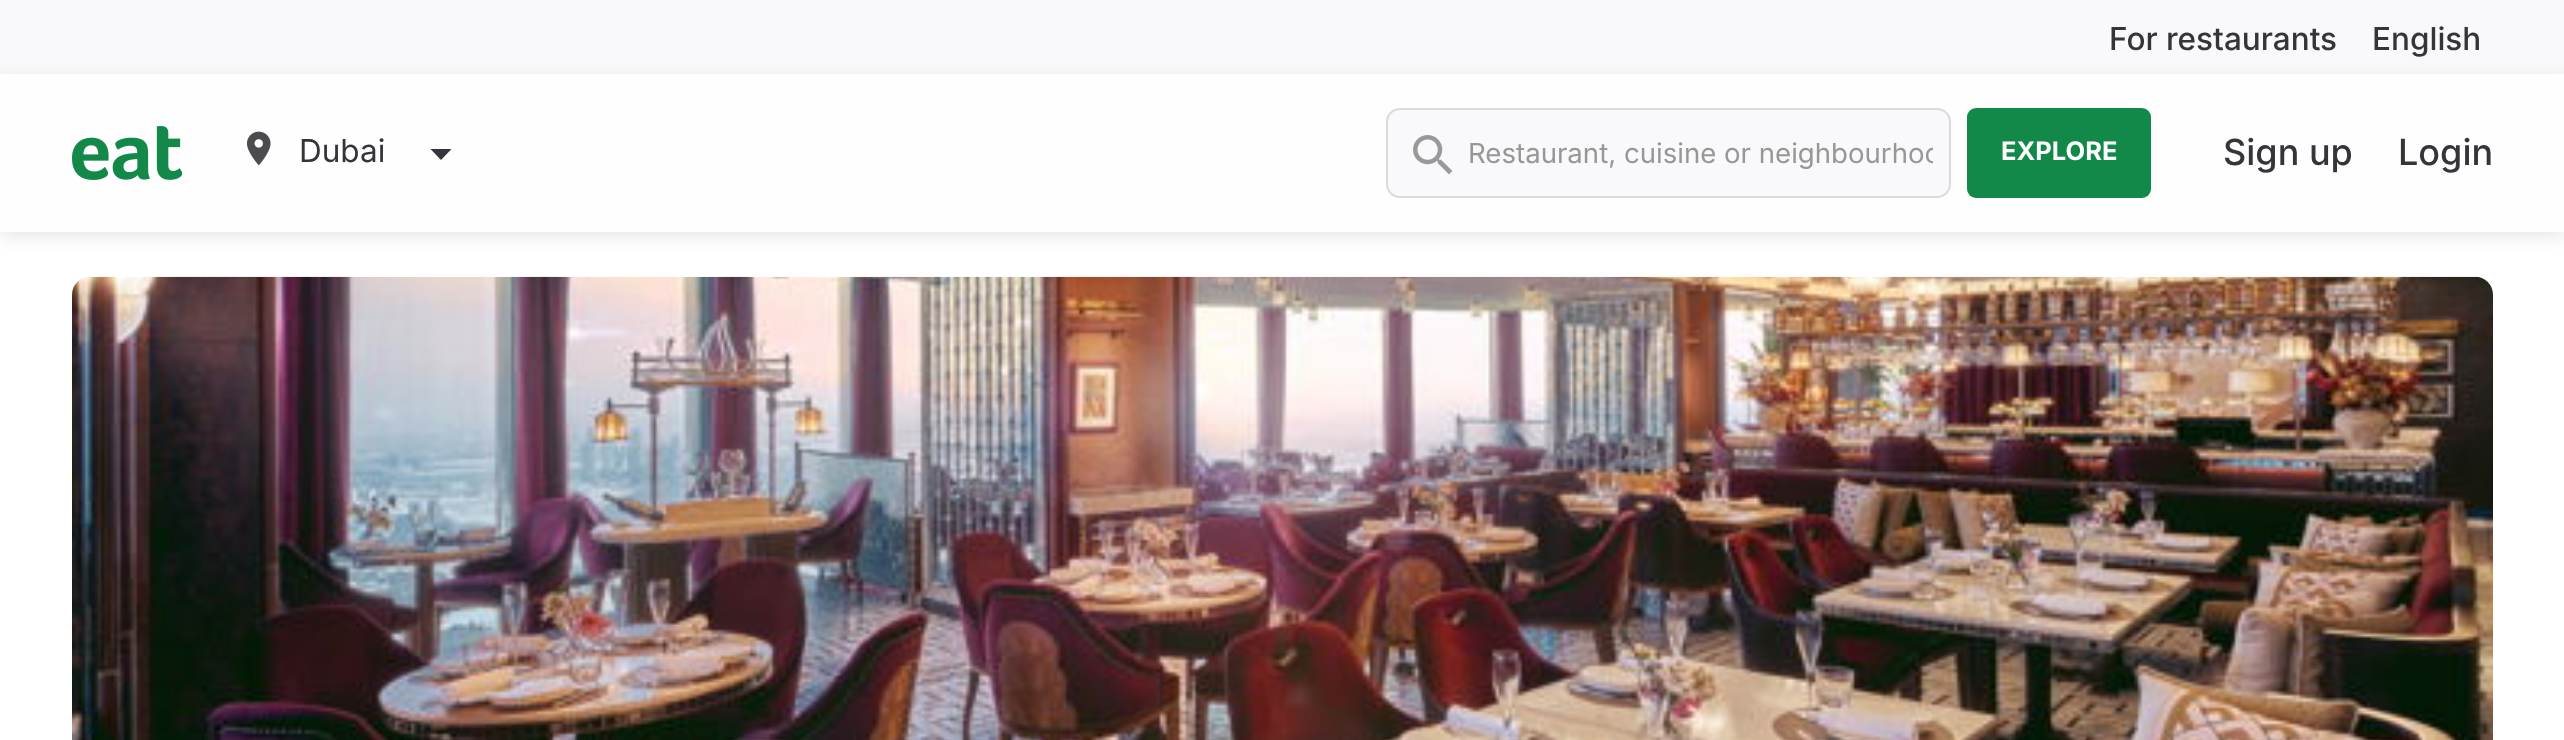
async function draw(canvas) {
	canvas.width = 2564;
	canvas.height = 740;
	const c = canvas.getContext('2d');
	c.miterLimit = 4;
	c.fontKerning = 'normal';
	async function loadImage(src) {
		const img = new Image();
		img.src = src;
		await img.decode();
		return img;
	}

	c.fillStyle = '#fff';
	c.fillRect(0, 0, 2564, 740);
	c.fillStyle = '#f9f9fb';
	c.fillRect(0, 0, 2564, 74);
	c.font = '500 31.5px Inter';
	c.fillStyle = '#34353a';
	c.fillText('For restaurants', 2109, 50);
	c.fillStyle = '#50505026';
	c.filter = 'blur(9px)';
	c.beginPath();
	c.rect(0, 79, 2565, 157);
	c.fill();
	c.filter = 'none';
	c.fillStyle = '#34353a';
	c.fillText('English', 2372, 50);
	c.fillStyle = '#fefefe';
	c.fillRect(0, 74, 2564, 158);
	c.drawImage(await loadImage('img1.png'), 72, 126, 110, 54);
	c.drawImage(await loadImage('img2.png'), 246, 131, 25, 35);
	c.font = '31.5px Inter';
	c.fillStyle = '#34353a';
	c.fillText('Dubai', 299, 162);
	c.save();
	c.beginPath();
	c.rect(430, 149, 22, 11);
	c.clip();
	c.beginPath();
	c.moveTo(430, 148.5);
	c.lineTo(441, 160);
	c.lineTo(452, 148.5);
	c.closePath();
	c.fill();
	c.restore();
	c.fillStyle = '#f9f9fb';
	c.beginPath();
	c.roundRect(1387, 109, 563, 88, 13);
	c.fill();
	c.strokeStyle = '#dadada';
	c.lineWidth = 2;
	c.stroke();
	c.drawImage(await loadImage('img3.png'), 1413, 135, 40, 40);
	c.save();
	c.beginPath();
	c.rect(1467, 137, 466, 34);
	c.clip();
	c.font = '27.6px Inter';
	c.fillStyle = '#979797';
	c.fillText('Restaurant, cuisine or neighbourhoo', 1468, 163);
	c.restore();
	c.fillStyle = '#128849';
	c.beginPath();
	c.roundRect(1967, 108, 184, 90, 9);
	c.fill();
	c.font = 'bold 25.5px Inter';
	c.fillStyle = '#fefefe';
	c.fillText('EXPLORE', 2001, 160);
	c.font = '500 36px Inter';
	c.fillStyle = '#34353a';
	c.fillText('Sign up', 2223, 165);
	c.fillText('Login', 2398, 165);
	c.drawImage(await loadImage('img4.png'), 72, 276, 2421, 464);
}

draw(document.querySelector('canvas'));
